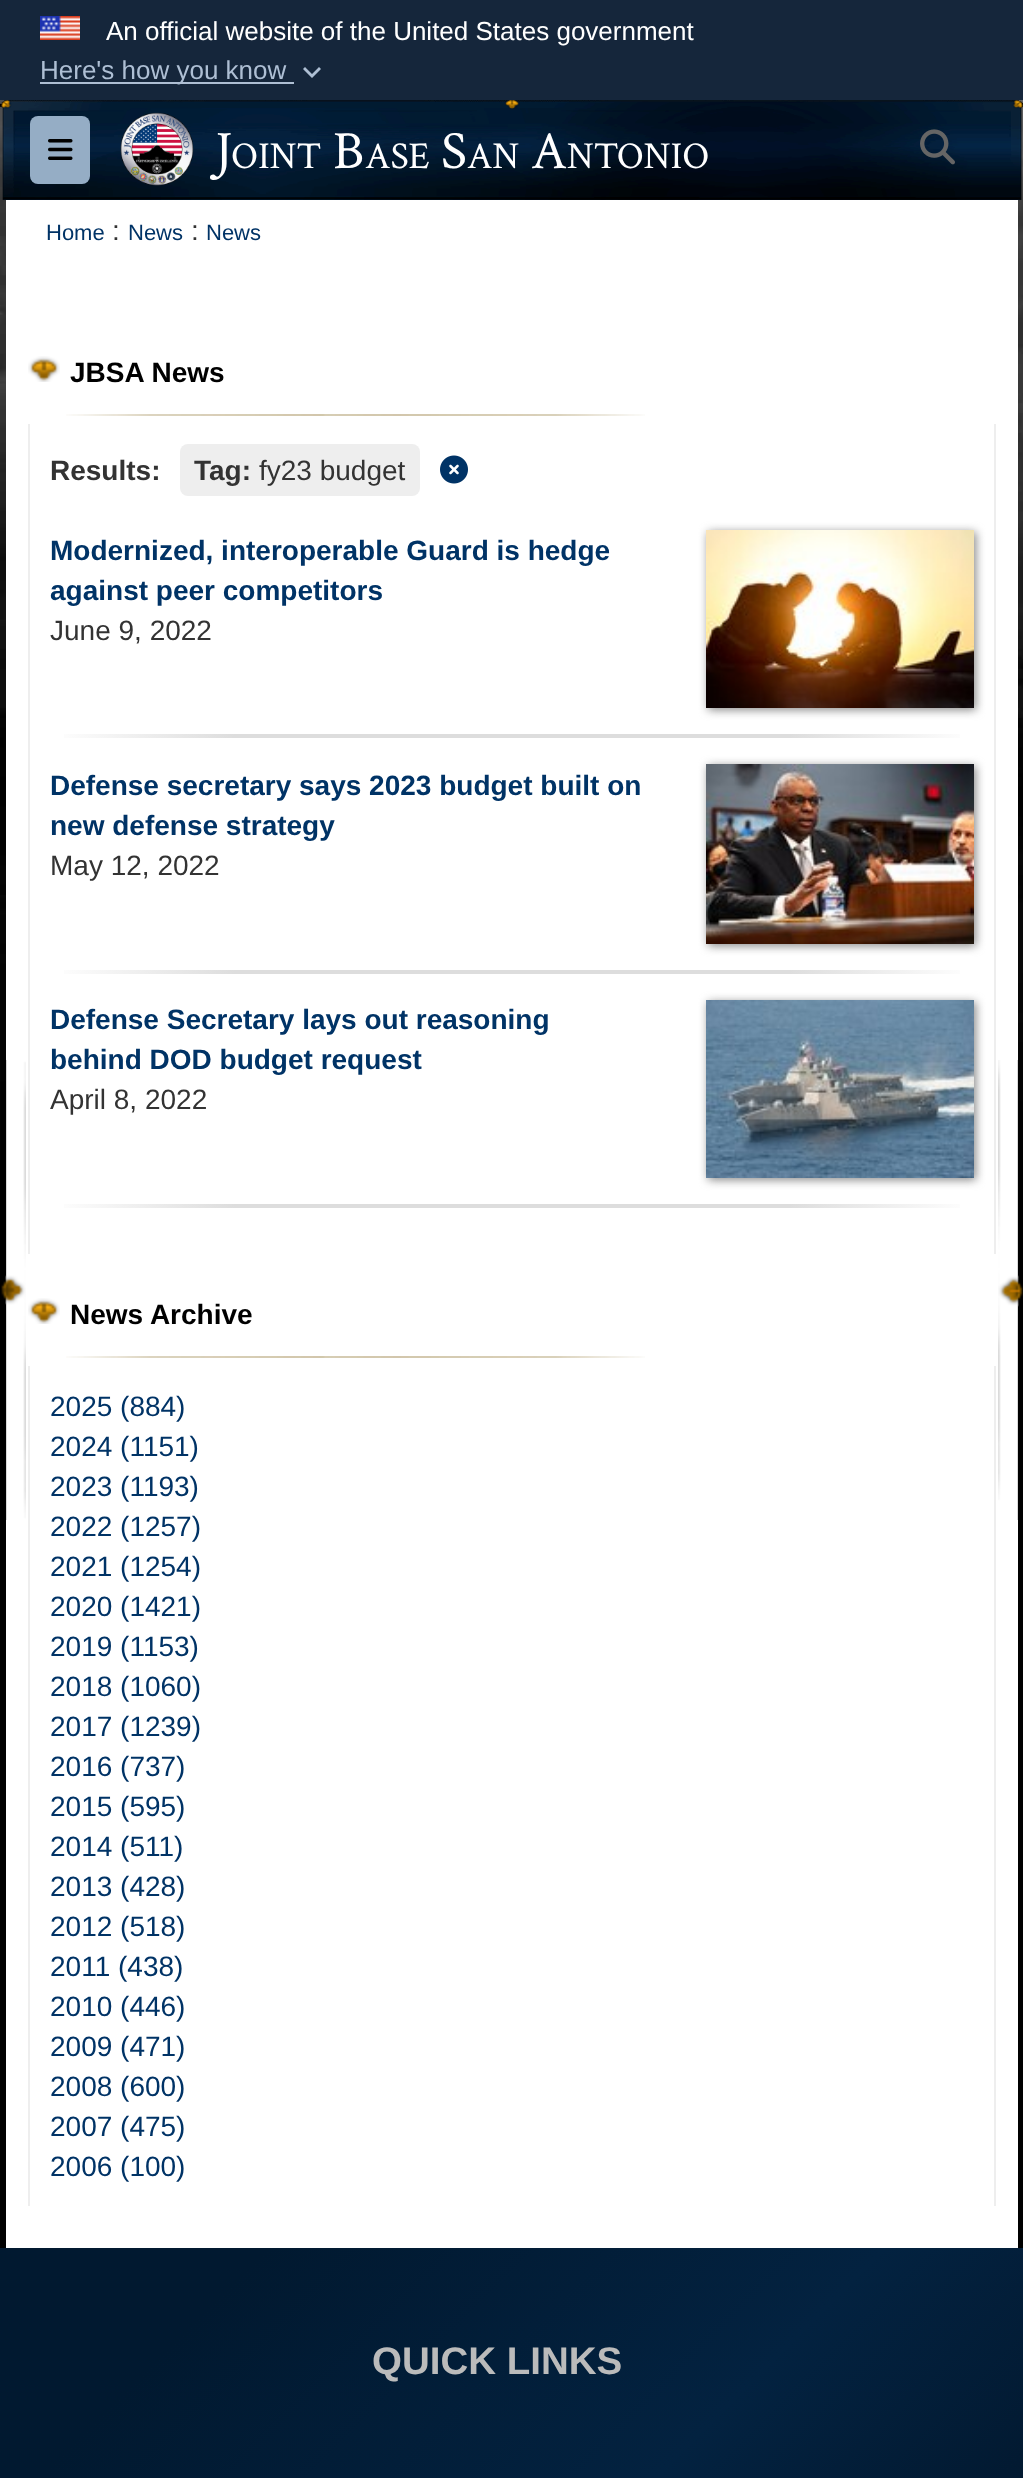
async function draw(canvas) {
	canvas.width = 1023;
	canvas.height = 2478;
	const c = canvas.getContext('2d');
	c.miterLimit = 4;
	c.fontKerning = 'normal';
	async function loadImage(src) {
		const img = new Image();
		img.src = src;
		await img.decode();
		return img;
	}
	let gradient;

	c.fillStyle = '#fff';
	c.fillRect(0, 0, 1023, 2478);
	c.drawImage(await loadImage('img1.png'), 0, 100, 1023, 2148);
	c.fillStyle = '#15263b';
	c.fillRect(0, 0, 1023, 100);
	c.drawImage(await loadImage('img2.png'), 40, 16, 40, 24);
	c.font = '26px Liberation Sans';
	c.fillStyle = '#fff';
	c.fillText('An official website of the United States government', 106, 40);
	c.fillStyle = '#aebfd4';
	c.fillRect(40, 82, 254, 2);
	c.fillText('Here\'s how you know', 40, 79);
	c.beginPath();
	c.moveTo(319, 67);
	c.lineTo(312, 74);
	c.lineTo(305, 67);
	c.lineTo(303, 69);
	c.lineTo(312, 78);
	c.lineTo(321, 69);
	c.closePath();
	c.fill();
	c.drawImage(await loadImage('img3.png'), 0, 100, 1023, 100);
	c.fillStyle = '#95adc5';
	c.beginPath();
	c.roundRect(30, 116, 60, 68, 8);
	c.fill();
	c.drawImage(await loadImage('img4.png'), 48, 139, 25, 21);
	c.drawImage(await loadImage('img5.png'), 120, 112, 74, 74);
	c.font = '54px Crimson Text';
	c.fillStyle = '#fff';
	c.fillText('J', 215, 168);
	c.font = '38px Crimson Text';
	c.fillText('OINT', 231, 168);
	c.font = '54px Crimson Text';
	c.fillText('B', 333, 168);
	c.font = '38px Crimson Text';
	c.fillText('ASE', 365, 168);
	c.font = '54px Crimson Text';
	c.fillText('S', 441, 168);
	c.font = '38px Crimson Text';
	c.fillText('AN', 467, 168);
	c.font = '54px Crimson Text';
	c.fillText('A', 531, 168);
	c.font = '38px Crimson Text';
	c.fillText('NTONIO', 567, 168);
	c.drawImage(await loadImage('img6.png'), 920, 129, 35, 36);
	c.fillRect(6, 200, 1012, 2048);
	c.font = '22px Liberation Sans';
	c.fillStyle = '#036';
	c.fillText('Home', 46, 240);
	c.font = '28px Liberation Sans';
	c.fillStyle = '#333';
	c.fillText(':', 112, 240);
	c.font = '22px Liberation Sans';
	c.fillStyle = '#036';
	c.fillText('News', 128, 240);
	c.font = '28px Liberation Sans';
	c.fillStyle = '#333';
	c.fillText(':', 191, 240);
	c.font = '22px Liberation Sans';
	c.fillStyle = '#036';
	c.fillText('News', 206, 240);
	c.drawImage(await loadImage('img7.png'), 1, 1060, 1022, 460);
	c.drawImage(await loadImage('img8.png'), 66, 414, 579, 2);
	c.drawImage(await loadImage('img9.png'), 28, 356, 32, 26);
	c.font = 'bold 28px Liberation Sans';
	c.fillStyle = '#000';
	c.fillText('JBSA News', 70, 382);
	c.fillStyle = '#eee';
	c.fillRect(994, 424, 2, 830);
	c.fillRect(28, 424, 2, 830);
	c.fillStyle = '#333';
	c.fillText('Results:', 50, 480);
	c.fillStyle = '#eee';
	c.beginPath();
	c.roundRect(180, 444, 240, 52, 8);
	c.fill();
	c.fillStyle = '#333';
	c.fillText('Tag:', 194, 480);
	c.font = '28px Liberation Sans';
	c.fillText('fy23 budget', 259, 480);
	c.drawImage(await loadImage('img10.png'), 440, 455, 28, 29);
	c.font = 'bold 28px Liberation Sans';
	c.fillStyle = '#036';
	c.fillText('Modernized, interoperable Guard is hedge', 50, 560);
	c.fillText('against peer competitors', 50, 600);
	c.font = '28px Liberation Sans';
	c.fillStyle = '#333';
	c.fillText('June 9, 2022', 50, 640);
	c.fillStyle = '#888';
	c.filter = 'blur(5px)';
	c.beginPath();
	c.rect(708, 532, 268, 178);
	c.fill();
	c.filter = 'none';
	c.drawImage(await loadImage('img11.png'), 706, 530, 268, 178);
	gradient = c.createLinearGradient(50, 736, 974, 736);
	gradient.addColorStop(0, '#fff');
	gradient.addColorStop(0.2, '#ddd');
	gradient.addColorStop(0.8, '#ddd');
	gradient.addColorStop(1, '#fff');
	c.fillStyle = gradient;
	c.fillRect(64, 734, 896, 4);
	c.font = 'bold 28px Liberation Sans';
	c.fillStyle = '#036';
	c.fillText('Defense secretary says 2023 budget built on', 50, 795);
	c.fillText('new defense strategy', 50, 835);
	c.font = '28px Liberation Sans';
	c.fillStyle = '#333';
	c.fillText('May 12, 2022', 50, 875);
	c.fillStyle = '#888';
	c.filter = 'blur(5px)';
	c.beginPath();
	c.rect(708, 766, 268, 180);
	c.fill();
	c.filter = 'none';
	c.drawImage(await loadImage('img12.png'), 706, 764, 268, 180);
	gradient = c.createLinearGradient(50, 972, 974, 972);
	gradient.addColorStop(0, '#fff');
	gradient.addColorStop(0.2, '#ddd');
	gradient.addColorStop(0.8, '#ddd');
	gradient.addColorStop(1, '#fff');
	c.fillStyle = gradient;
	c.fillRect(64, 970, 896, 4);
	c.font = 'bold 28px Liberation Sans';
	c.fillStyle = '#036';
	c.fillText('Defense Secretary lays out reasoning', 50, 1029);
	c.fillText('behind DOD budget request', 50, 1069);
	c.font = '28px Liberation Sans';
	c.fillStyle = '#333';
	c.fillText('April 8, 2022', 50, 1109);
	c.fillStyle = '#888';
	c.filter = 'blur(5px)';
	c.beginPath();
	c.rect(708, 1002, 268, 178);
	c.fill();
	c.filter = 'none';
	c.drawImage(await loadImage('img13.png'), 706, 1000, 268, 178);
	gradient = c.createLinearGradient(50, 1206, 974, 1206);
	gradient.addColorStop(0, '#fff');
	gradient.addColorStop(0.2, '#ddd');
	gradient.addColorStop(0.8, '#ddd');
	gradient.addColorStop(1, '#fff');
	c.fillStyle = gradient;
	c.fillRect(64, 1204, 896, 4);
	c.drawImage(await loadImage('img8.png'), 66, 1356, 579, 2);
	c.drawImage(await loadImage('img9.png'), 28, 1298, 32, 26);
	c.font = 'bold 28px Liberation Sans';
	c.fillStyle = '#000';
	c.fillText('News Archive', 70, 1324);
	c.fillStyle = '#eee';
	c.fillRect(994, 1366, 2, 840);
	c.fillRect(28, 1366, 2, 840);
	c.font = '28px Liberation Sans';
	c.fillStyle = '#036';
	for (const [text, x, y] of [
		['2025 (884)', 50, 1416],
		['2024 (1151)', 50, 1456],
		['2023 (1193)', 50, 1496],
		['2022 (1257)', 50, 1536],
		['2021 (1254)', 50, 1576],
		['2020 (1421)', 50, 1616],
		['2019 (1153)', 50, 1656],
		['2018 (1060)', 50, 1696],
		['2017 (1239)', 50, 1736],
		['2016 (737)', 50, 1776],
		['2015 (595)', 50, 1816],
		['2014 (511)', 50, 1856],
		['2013 (428)', 50, 1896],
		['2012 (518)', 50, 1936],
		['2011 (438)', 50, 1976],
		['2010 (446)', 50, 2016],
		['2009 (471)', 50, 2056],
		['2008 (600)', 50, 2096],
		['2007 (475)', 50, 2136],
		['2006 (100)', 50, 2176],
	]) {
		c.fillText(text, x, y);
	}
	gradient = c.createLinearGradient(-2, 2250, 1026, 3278);
	gradient.addColorStop(0, '#011930');
	gradient.addColorStop(0.13, '#011930');
	gradient.addColorStop(0.43, '#032240');
	gradient.addColorStop(0.79, '#011122');
	gradient.addColorStop(1, '#000b16');
	c.fillStyle = gradient;
	c.fillRect(0, 2248, 1023, 230);
	c.font = 'bold 38.5px Liberation Sans';
	c.fillStyle = '#bbb';
	c.fillText('QUICK LINKS', 372, 2374);
}

draw(document.querySelector('canvas'));
